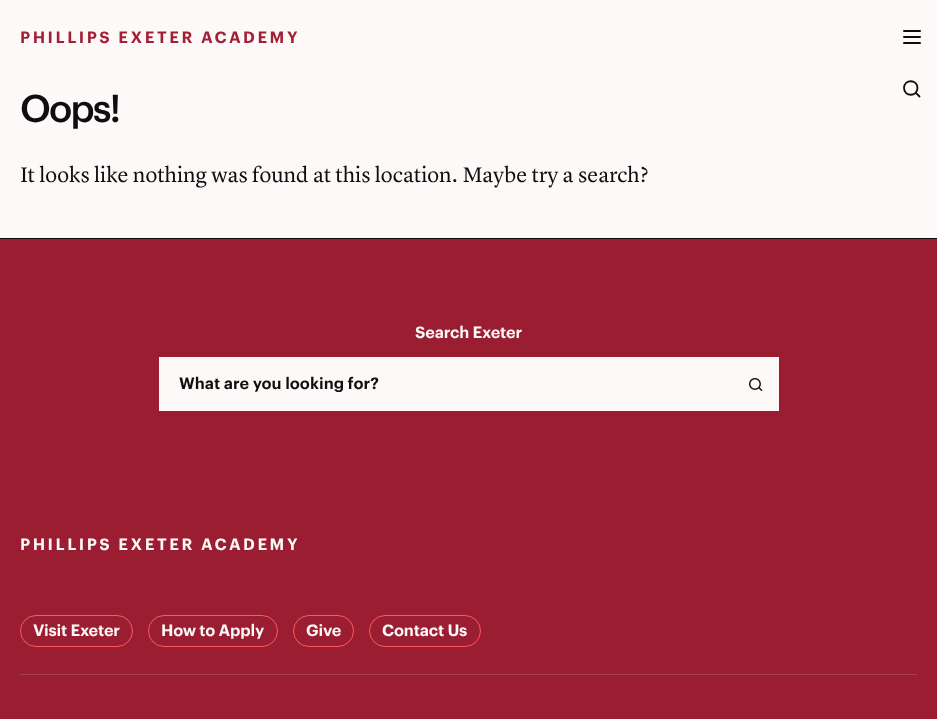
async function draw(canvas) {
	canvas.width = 937;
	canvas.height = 719;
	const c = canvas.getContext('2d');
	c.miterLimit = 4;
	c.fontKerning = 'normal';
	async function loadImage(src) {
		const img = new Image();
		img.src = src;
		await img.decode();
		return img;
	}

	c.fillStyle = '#fcf9f8';
	c.fillRect(0, 0, 937, 719);
	c.letterSpacing = '2.5px';
	c.font = '600 16px Graphik';
	c.fillStyle = '#a31f34';
	c.fillText('PHILLIPS EXETER ACADEMY', 20, 43);
	c.fillStyle = '#0f0d0d';
	c.beginPath();
	c.roundRect(903, 36, 18, 2, 1);
	c.fill();
	c.beginPath();
	c.roundRect(903, 30, 18, 2, 1);
	c.fill();
	c.beginPath();
	c.roundRect(903, 42, 18, 2, 1);
	c.fill();
	c.beginPath();
	c.moveTo(915.5, 92.5);
	c.lineTo(920, 97);
	c.moveTo(917.5, 88);
	c.bezierCurveTo(917.5, 97, 904, 97, 904, 88);
	c.bezierCurveTo(904, 79, 917.5, 79, 917.5, 88);
	c.closePath();
	c.strokeStyle = '#0f0d0d';
	c.lineWidth = 1.8;
	c.stroke();
	c.fillRect(0, 238, 937, 1);
	c.letterSpacing = '-2px';
	c.font = '500 38px Graphik';
	c.fillText('Oops!', 20, 122);
	c.letterSpacing = '0px';
	c.font = '22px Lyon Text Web';
	c.fillText('It looks like nothing was found at this location. Maybe try a search?', 20, 182);
	c.fillStyle = '#9b1d31';
	c.fillRect(0, 239, 937, 480);
	c.letterSpacing = '-0.2px';
	c.font = '600 16px Graphik';
	c.fillStyle = '#fcf9f8';
	c.fillText('Search Exeter', 415, 338);
	c.fillRect(159, 357, 620, 54);
	c.letterSpacing = '0px';
	c.fillStyle = '#0f0d0d';
	c.fillText('What are you looking for?', 179, 389);
	c.drawImage(await loadImage('img1.png'), 749, 378, 14, 13);
	c.letterSpacing = '2.5px';
	c.fillStyle = '#fcf9f8';
	c.fillText('PHILLIPS EXETER ACADEMY', 20, 550);
	c.beginPath();
	c.roundRect(20.5, 615.5, 112, 31, 15.5);
	c.strokeStyle = '#ff585d';
	c.lineWidth = 1;
	c.stroke();
	c.letterSpacing = '-0.2px';
	c.fillText('Visit Exeter', 33, 636);
	c.beginPath();
	c.roundRect(148.5, 615.5, 129, 31, 15.5);
	c.stroke();
	c.fillText('How to Apply', 161, 636);
	c.beginPath();
	c.roundRect(293.5, 615.5, 60, 31, 15.5);
	c.stroke();
	c.fillText('Give', 306, 636);
	c.beginPath();
	c.roundRect(369.5, 615.5, 111, 31, 15.5);
	c.stroke();
	c.fillText('Contact Us', 382, 636);
	c.fillStyle = '#aa3e4f';
	c.fillRect(20, 674, 897, 1);
}

draw(document.querySelector('canvas'));
